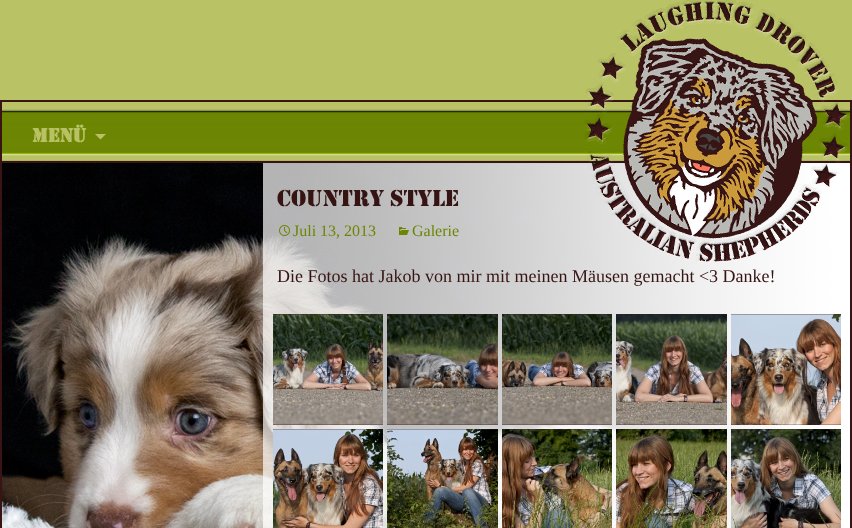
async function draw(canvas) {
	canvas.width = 852;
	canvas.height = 528;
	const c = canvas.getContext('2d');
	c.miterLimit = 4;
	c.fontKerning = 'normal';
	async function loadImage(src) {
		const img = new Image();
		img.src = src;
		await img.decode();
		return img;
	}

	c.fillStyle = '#b9c265';
	c.fillRect(0, 0, 852, 528);
	c.strokeStyle = '#381414';
	c.lineWidth = 2;
	c.strokeRect(1, 101, 850, 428);
	c.drawImage(await loadImage('img1.png'), 2, 109, 848, 52);
	c.font = 'bold 20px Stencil';
	c.fillStyle = '#b8c164';
	c.fillText('MENÜ', 32, 142);
	c.beginPath();
	c.moveTo(95, 134);
	c.lineTo(100.5, 139.5);
	c.lineTo(106, 134);
	c.closePath();
	c.fill();
	c.fillStyle = '#361413';
	c.fillRect(2, 161, 848, 2);
	c.drawImage(await loadImage('img3.png'), 2, 163, 848, 365);
	c.drawImage(await loadImage('img2.png'), 584, 0, 266, 262);
	c.font = '24px Stencil';
	c.fillStyle = '#371414';
	c.fillText('COUNTRY STYLE', 277, 206);
	c.drawImage(await loadImage('img4.png'), 279, 225, 11, 11);
	c.font = '16px Liberation Serif';
	c.fillStyle = '#6c8503';
	c.fillText('Juli 13, 2013', 293, 236);
	c.drawImage(await loadImage('img5.png'), 399, 227, 10, 8);
	c.fillText('Galerie', 412, 236);
	c.font = '18px Liberation Serif';
	c.fillStyle = '#371414';
	c.fillText('Die Fotos hat Jakob von mir mit meinen Mäusen gemacht <3 Danke!', 277, 282);
	c.drawImage(await loadImage('img6.png'), 273, 314, 110, 111);
	c.drawImage(await loadImage('img7.png'), 387, 314, 111, 111);
	c.drawImage(await loadImage('img8.png'), 502, 314, 110, 111);
	c.drawImage(await loadImage('img9.png'), 616, 314, 111, 111);
	c.drawImage(await loadImage('img10.png'), 731, 314, 110, 111);
	c.drawImage(await loadImage('img11.png'), 273, 429, 110, 99);
	c.drawImage(await loadImage('img12.png'), 387, 429, 111, 99);
	c.drawImage(await loadImage('img13.png'), 502, 429, 110, 99);
	c.drawImage(await loadImage('img14.png'), 616, 429, 111, 99);
	c.drawImage(await loadImage('img15.png'), 731, 429, 110, 99);
}

draw(document.querySelector('canvas'));
